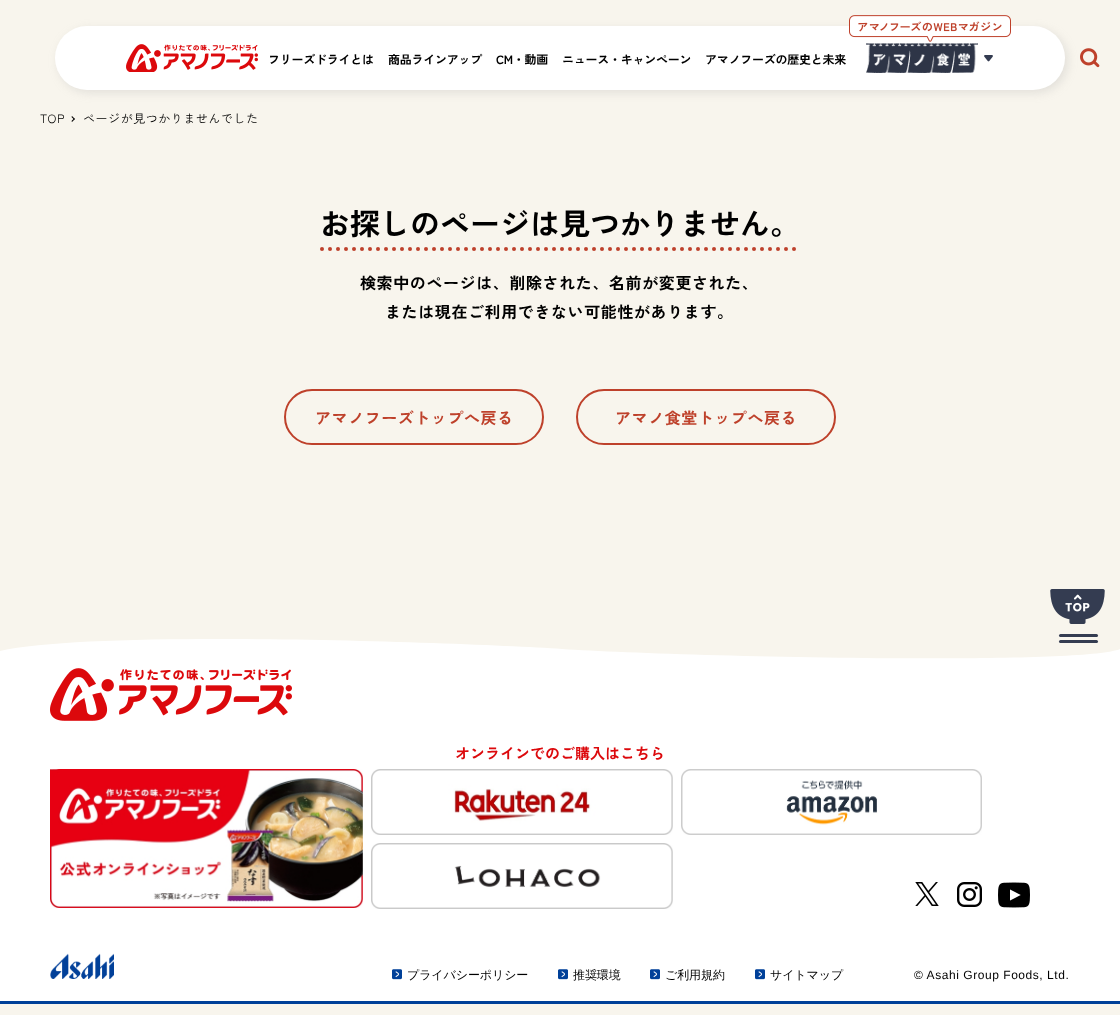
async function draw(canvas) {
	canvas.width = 1120;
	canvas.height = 1015;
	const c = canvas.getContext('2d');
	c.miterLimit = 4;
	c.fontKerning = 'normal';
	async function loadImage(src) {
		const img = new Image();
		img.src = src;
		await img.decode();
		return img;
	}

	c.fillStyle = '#f8f5ed';
	c.fillRect(0, 0, 1120, 1015);
	c.fillStyle = '#a5a5a540';
	c.filter = 'blur(5px)';
	c.beginPath();
	c.roundRect(58, 29, 1010, 64, 32);
	c.fill();
	c.filter = 'none';
	c.fillStyle = '#fff';
	c.beginPath();
	c.roundRect(55, 26, 1010, 64, 32);
	c.fill();
	c.drawImage(await loadImage('img1.png'), 126, 44, 132, 28);
	c.letterSpacing = '-0.25px';
	c.font = 'bold 12px Zen Kaku Gothic New';
	c.fillStyle = '#000';
	for (const [text, x, y] of [
		['フリーズドライとは', 268, 64],
		['商品ラインアップ', 388, 64],
		['CM・動画', 496, 64],
		['ニュース・キャンペーン', 562, 64],
		['アマノフーズの歴史と未来', 705, 64],
	]) {
		c.fillText(text, x, y);
	}
	c.drawImage(await loadImage('img2.png'), 849, 15, 162, 27);
	c.drawImage(await loadImage('img3.png'), 866, 43, 112, 30);
	c.drawImage(await loadImage('img4.png'), 984, 55, 9, 7);
	c.drawImage(await loadImage('img5.png'), 1080, 48, 20, 20);
	c.letterSpacing = '0.55px';
	c.font = '12px Zen Kaku Gothic New';
	c.fillText('TOP', 40, 123);
	c.beginPath();
	c.moveTo(72, 116);
	c.lineTo(75, 119);
	c.lineTo(74, 119.5);
	c.lineTo(71.5, 117);
	c.closePath();
	c.fill();
	c.beginPath();
	c.moveTo(74, 118.5);
	c.lineTo(75, 119);
	c.lineTo(72, 122);
	c.lineTo(71.5, 121);
	c.closePath();
	c.fill();
	c.fillText('ページが見つかりませんでした', 83, 123);
	c.letterSpacing = '0px';
	c.font = 'bold 30px Zen Kaku Gothic New';
	c.fillText('お探しのページは見つかりません。', 320, 235);
	c.drawImage(await loadImage('img6.png'), 320, 247, 476, 4);
	c.letterSpacing = '0.6px';
	c.font = 'bold 16px Zen Kaku Gothic New';
	c.fillText('検索中のページは、削除された、名前が変更された、', 360, 289);
	c.fillText('または現在ご利用できない可能性があります。', 385, 318);
	c.beginPath();
	c.roundRect(285, 390, 258, 54, 27);
	c.strokeStyle = '#be412b';
	c.lineWidth = 2;
	c.stroke();
	c.letterSpacing = '0.55px';
	c.fillStyle = '#be412b';
	c.fillText('アマノフーズトップへ戻る', 315, 424);
	c.beginPath();
	c.roundRect(577, 390, 258, 54, 27);
	c.stroke();
	c.fillText('アマノ食堂トップへ戻る', 615, 424);
	c.drawImage(await loadImage('img7.png'), 1050, 589, 55, 35);
	c.fillStyle = '#343c51';
	c.beginPath();
	c.roundRect(1059, 634, 39, 3, 1.5);
	c.fill();
	c.save();
	c.beginPath();
	c.rect(0, 639, 1120, 29);
	c.clip();
	c.fillStyle = '#fff';
	c.beginPath();
	c.moveTo(0, 651);
	c.bezierCurveTo(100, 629, 470, 643, 562, 649);
	c.bezierCurveTo(666, 656, 1079, 666, 1120, 649);
	c.lineTo(1120, 709);
	c.lineTo(0, 709);
	c.closePath();
	c.fill();
	c.restore();
	c.beginPath();
	c.roundRect(1059, 640, 39, 3, 1.5);
	c.fill();
	c.fillStyle = '#fff';
	c.fillRect(0, 668, 1120, 333);
	c.drawImage(await loadImage('img8.png'), 50, 668, 242, 53);
	c.letterSpacing = '0px';
	c.font = 'bold 15px Zen Kaku Gothic New';
	c.fillStyle = '#dc090c';
	c.fillText('オンラインでのご購入はこちら', 455, 759);
	c.drawImage(await loadImage('img9.png'), 50, 769, 313, 139);
	c.drawImage(await loadImage('img10.png'), 371, 769, 302, 66);
	c.drawImage(await loadImage('img11.png'), 681, 769, 301, 66);
	c.drawImage(await loadImage('img12.png'), 371, 843, 302, 66);
	c.drawImage(await loadImage('img13.png'), 915, 882, 24, 24);
	c.drawImage(await loadImage('img14.png'), 957, 882, 25, 25);
	c.drawImage(await loadImage('img15.png'), 998, 882, 32, 26);
	c.fillStyle = '#004099';
	c.fillRect(0, 1001, 1120, 3);
	c.drawImage(await loadImage('img16.png'), 50, 953, 64, 26);
	c.drawImage(await loadImage('img17.png'), 392, 969, 10, 11);
	c.letterSpacing = '-0.1px';
	c.font = '500 12px WenQuanYi Zen Hei';
	c.fillStyle = '#000';
	c.fillText('プライバシーポリシー', 407, 979);
	c.drawImage(await loadImage('img17.png'), 558, 969, 10, 11);
	c.fillText('推奨環境', 573, 979);
	c.drawImage(await loadImage('img17.png'), 650, 969, 10, 11);
	c.fillText('ご利用規約', 665, 979);
	c.drawImage(await loadImage('img17.png'), 755, 969, 10, 11);
	c.fillText('サイトマップ', 770, 979);
	c.letterSpacing = '0.55px';
	c.font = '12px Liberation Sans';
	c.fillText('© Asahi Group Foods, Ltd.', 914, 979);
}

draw(document.querySelector('canvas'));
